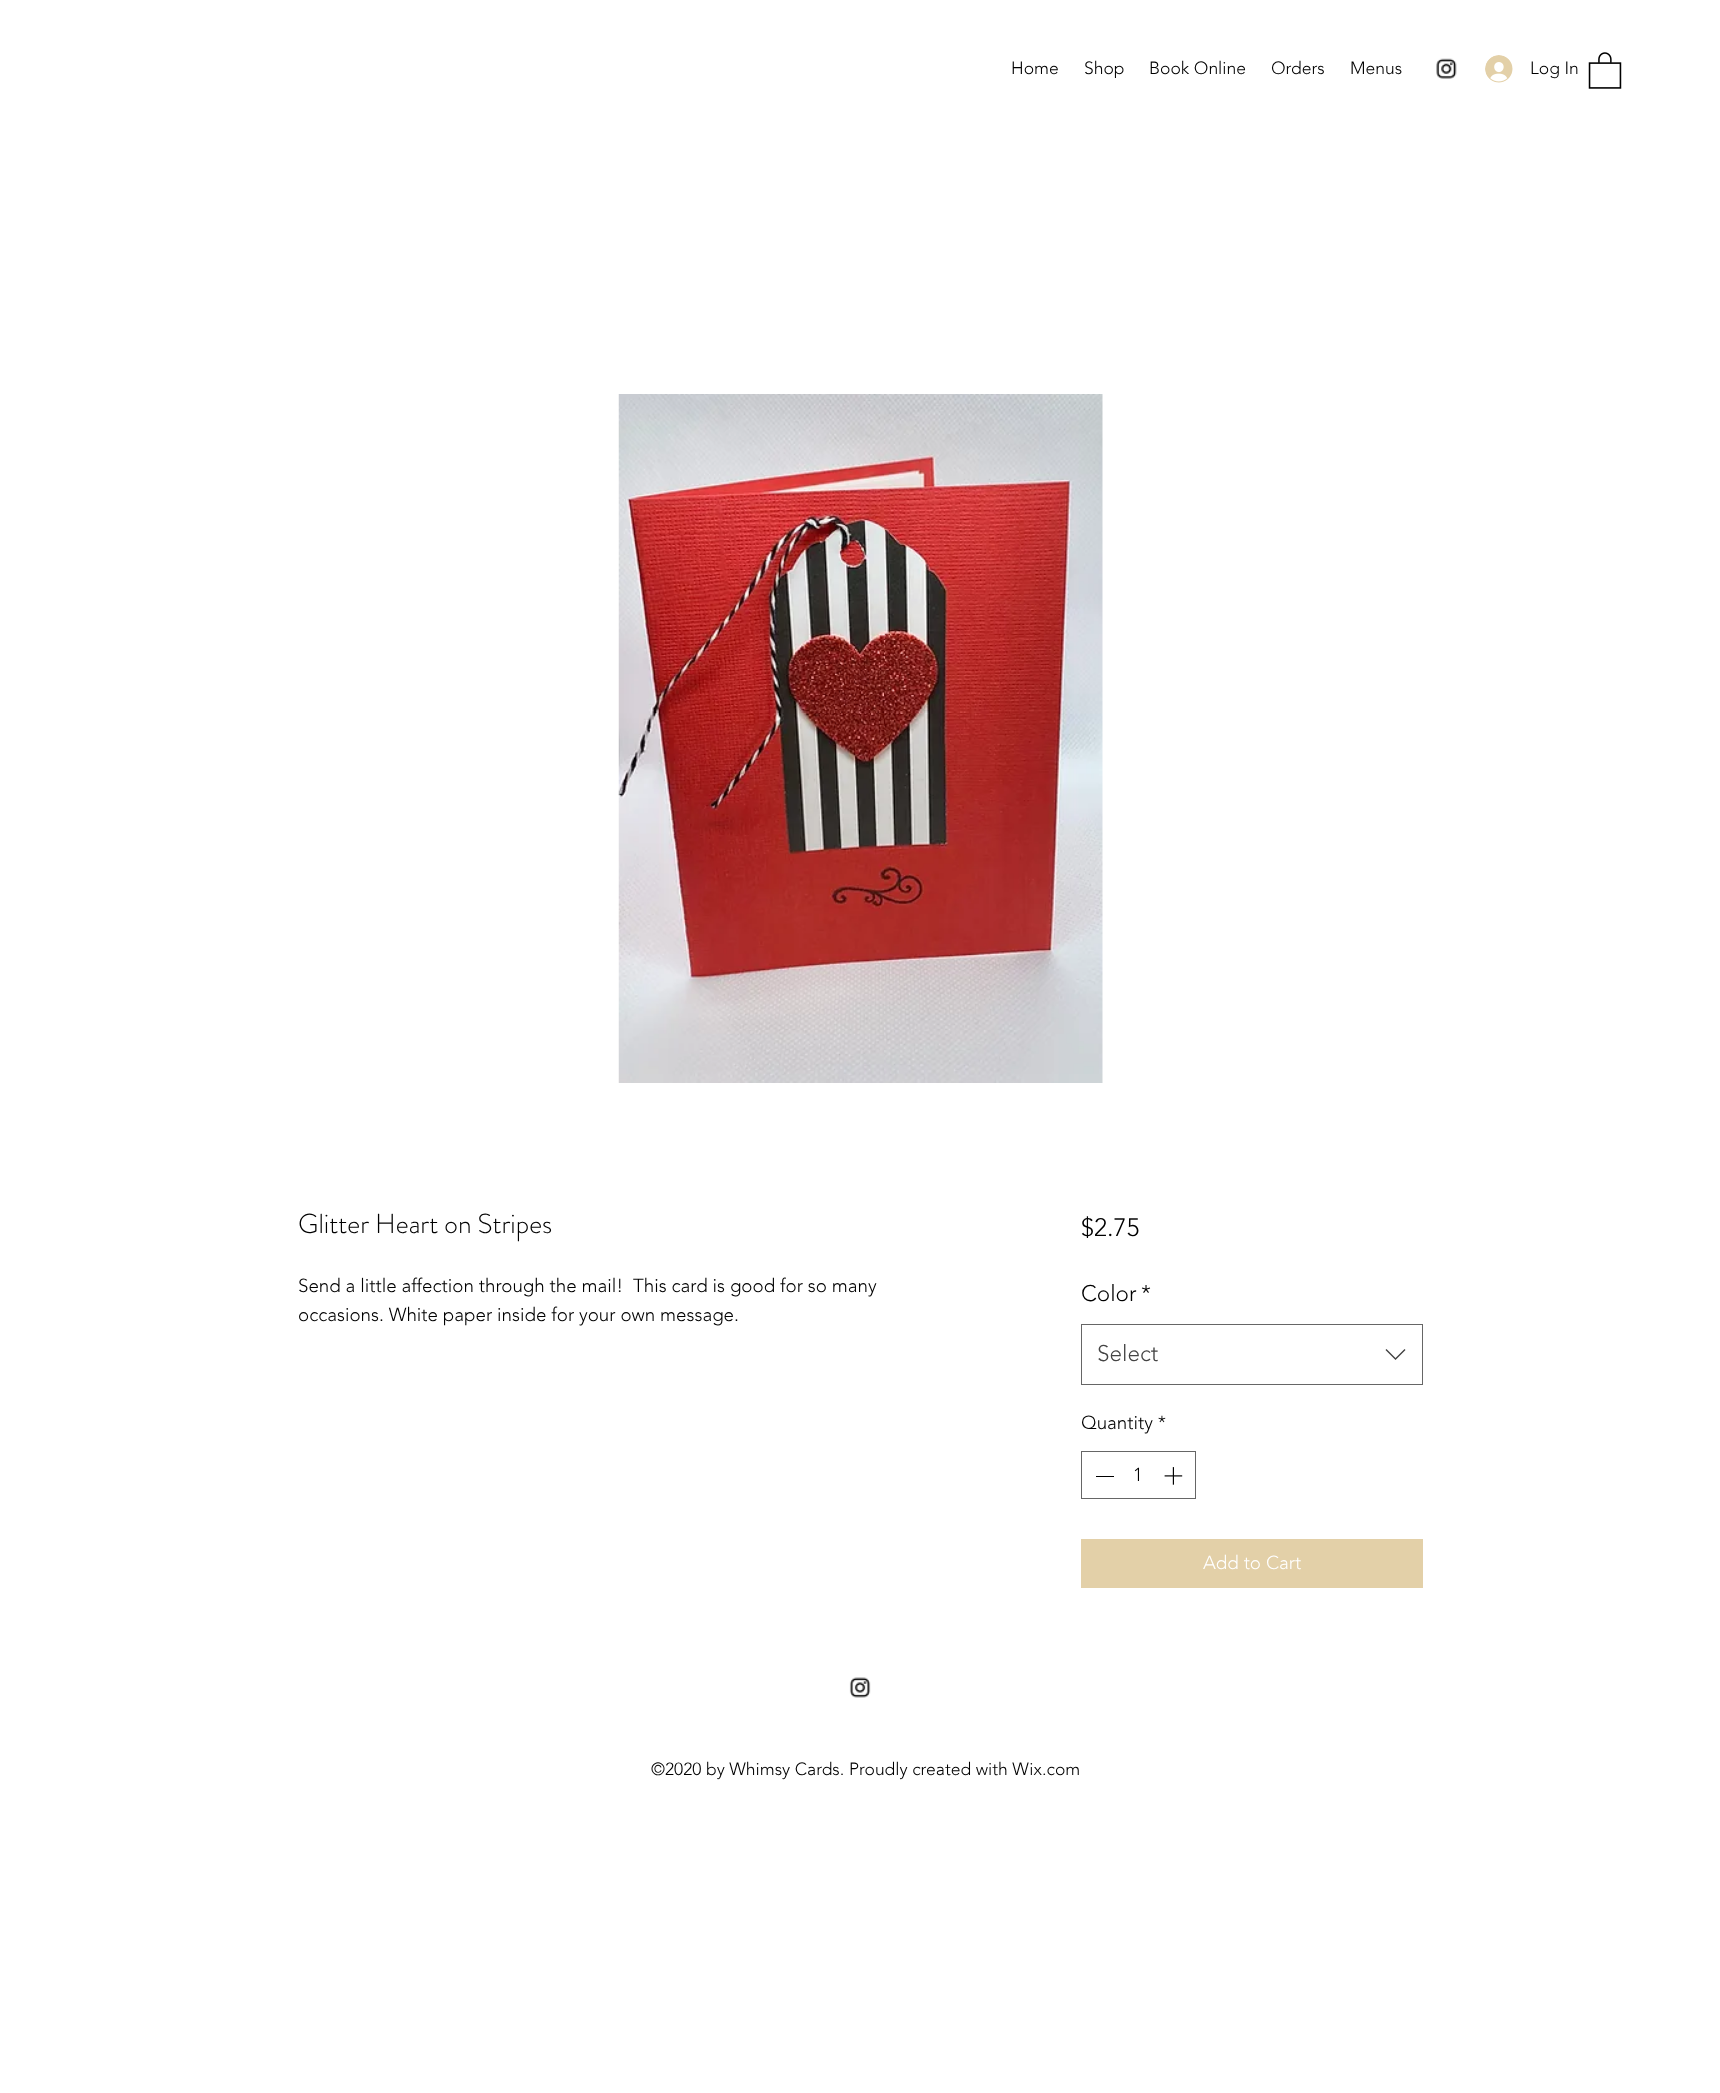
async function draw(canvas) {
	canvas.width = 1720;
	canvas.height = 2093;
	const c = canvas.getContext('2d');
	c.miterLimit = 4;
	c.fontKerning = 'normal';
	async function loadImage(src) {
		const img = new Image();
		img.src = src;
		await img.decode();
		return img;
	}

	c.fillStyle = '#fff';
	c.fillRect(0, 0, 1720, 2093);
	c.font = '300 17.5px "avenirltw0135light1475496"';
	c.fillStyle = '#000';
	for (const [text, x, y] of [
		['Home', 1011, 74],
		['Shop', 1084, 74],
		['Book Online', 1149, 74],
		['Orders', 1271, 74],
		['Menus', 1350, 74],
	]) {
		c.fillText(text, x, y);
	}
	c.drawImage(await loadImage('img1.png'), 1436, 58, 21, 21);
	c.drawImage(await loadImage('img2.png'), 1485, 55, 28, 28);
	c.fillText('Log In', 1530, 74);
	c.drawImage(await loadImage('img3.png'), 1588, 52, 34, 37);
	c.drawImage(await loadImage('img4.png'), 618, 394, 485, 689);
	c.font = '300 27.5px "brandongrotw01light"';
	c.fillText('Glitter Heart on Stripes', 298, 1233);
	c.font = '300 18.75px "avenirltw0135light1475496"';
	c.fillText('Send a little affection through the mail!  This card is good for so many', 298, 1292);
	c.fillText('occasions. White paper inside for your own message.', 298, 1321);
	c.font = '300 25px "avenirltw0135light1475496"';
	c.fillText('$2.75', 1081, 1236);
	c.font = '300 22.5px "avenirltw0135light1475496"';
	c.fillText('Color', 1081, 1301);
	c.fillText('*', 1141, 1301);
	c.strokeStyle = '#666';
	c.strokeRect(1081.5, 1324.5, 341, 60);
	c.fillStyle = '#444';
	c.fillText('Select', 1097, 1361);
	c.beginPath();
	c.moveTo(1404.5, 1349);
	c.lineTo(1405.5, 1350);
	c.lineTo(1395.5, 1360);
	c.lineTo(1385.5, 1350);
	c.lineTo(1386.5, 1349);
	c.lineTo(1395.5, 1358);
	c.closePath();
	c.fill('evenodd');
	c.font = '300 18.75px "avenirltw0135light1475496"';
	c.fillStyle = '#000';
	c.fillText('Quantity *', 1081, 1429);
	c.strokeRect(1081.5, 1451.5, 114, 47);
	c.fillRect(1096, 1476, 18, 1);
	c.fillText('1', 1133, 1481);
	c.drawImage(await loadImage('img5.png'), 1164, 1467, 19, 18);
	c.fillStyle = '#e3d0a8';
	c.fillRect(1081, 1539, 342, 49);
	c.fillStyle = '#fff';
	c.fillText('Add to Cart', 1203, 1569);
	c.drawImage(await loadImage('img6.png'), 849, 1677, 22, 21);
	c.font = '300 17.5px "avenirltw0135light1475496"';
	c.fillStyle = '#000';
	c.fillText('©2020 by Whimsy Cards. Proudly created with Wix.com', 651, 1775);
}

draw(document.querySelector('canvas'));
